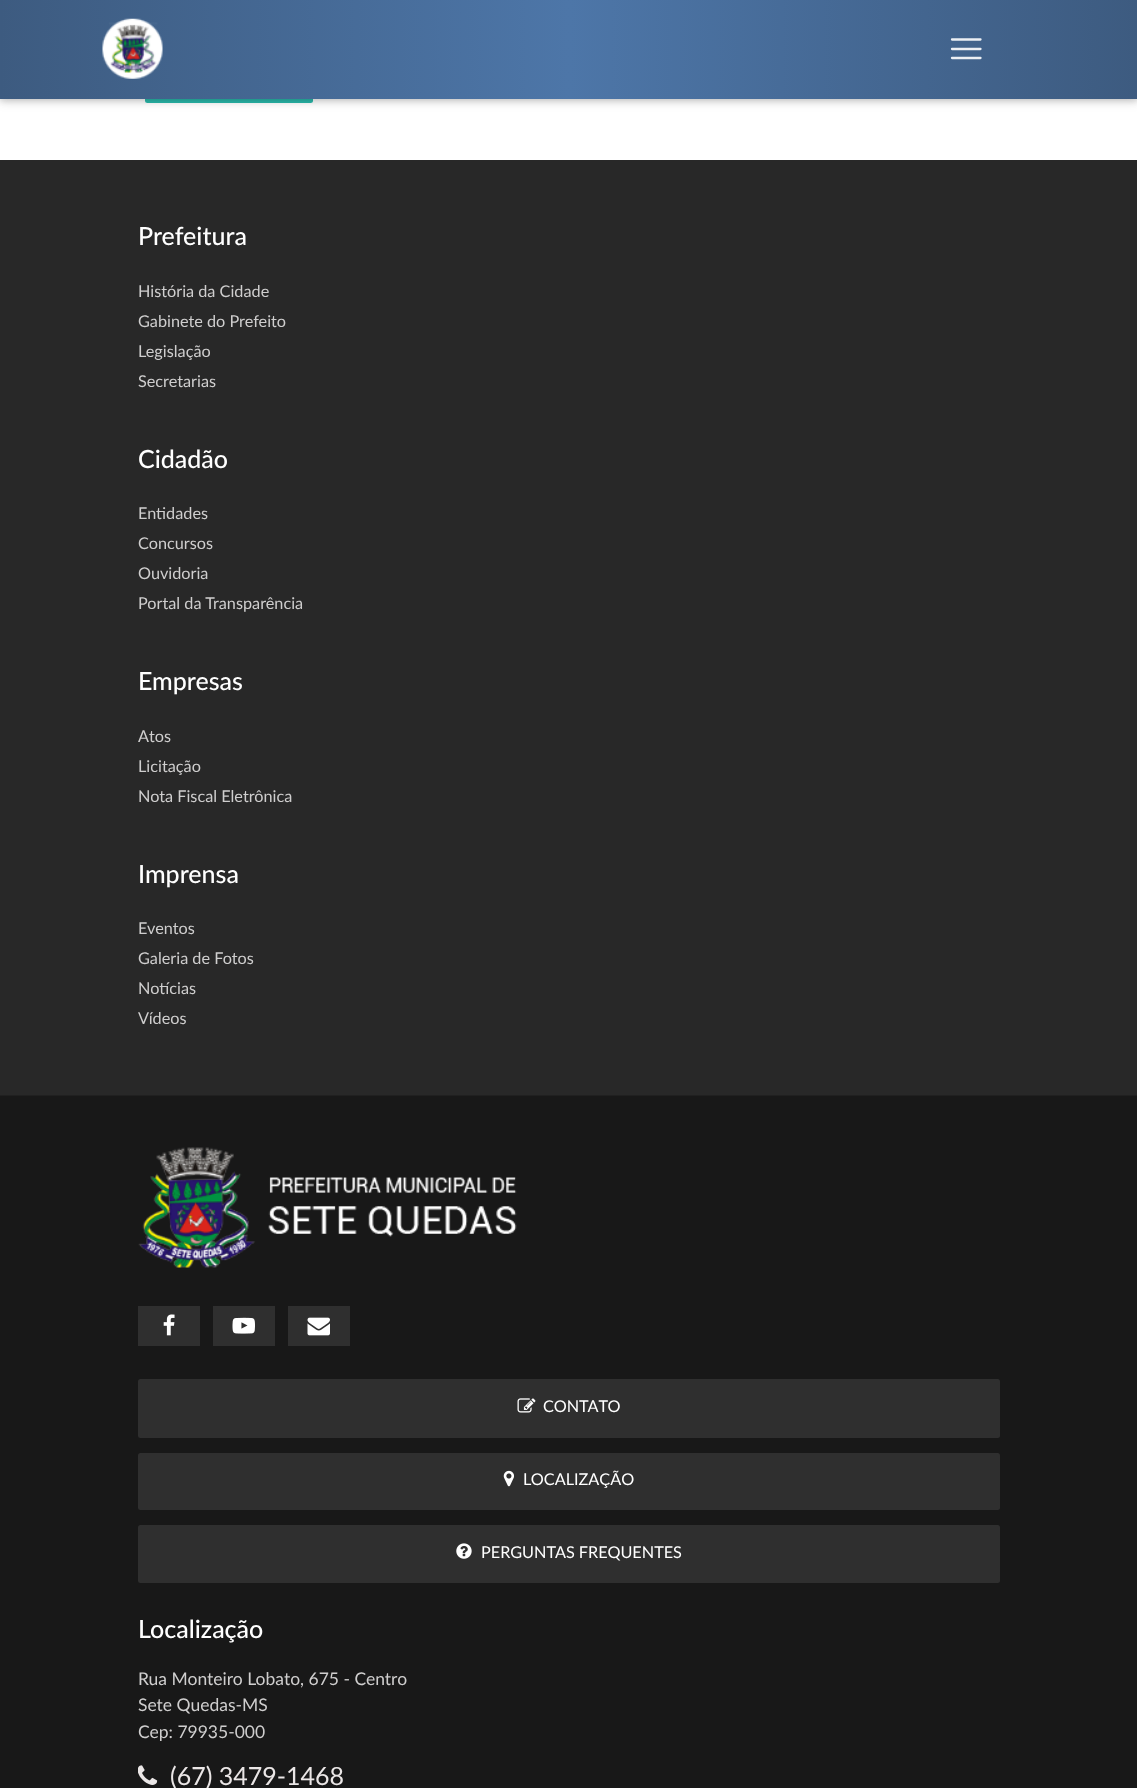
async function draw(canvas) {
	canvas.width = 1137;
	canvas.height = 1788;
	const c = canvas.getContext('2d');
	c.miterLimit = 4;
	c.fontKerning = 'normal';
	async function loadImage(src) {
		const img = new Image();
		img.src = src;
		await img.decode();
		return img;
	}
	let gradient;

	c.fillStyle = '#fff';
	c.fillRect(0, 0, 1137, 1788);
	c.fillStyle = '#2bbbad';
	c.beginPath();
	c.roundRect(145, 45, 168, 58, 2.5);
	c.fill();
	c.fillStyle = '#0000001f';
	c.filter = 'blur(6px)';
	c.beginPath();
	c.rect(0, 3, 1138, 98);
	c.fill();
	c.filter = 'none';
	c.fillStyle = '#00000029';
	c.filter = 'blur(3px)';
	c.beginPath();
	c.rect(0, 3, 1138, 98);
	c.fill();
	c.filter = 'none';
	gradient = c.createLinearGradient(0, 49, 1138, 49);
	gradient.addColorStop(0, '#3d5b80');
	gradient.addColorStop(0.5, '#4d76a8');
	gradient.addColorStop(1, '#3d5b80');
	c.fillStyle = gradient;
	c.fillRect(0, 0, 1137, 99);
	c.drawImage(await loadImage('img1.png'), 102, 18, 61, 61);
	c.beginPath();
	c.moveTo(952, 39.5);
	c.lineTo(980.5, 39.5);
	c.moveTo(952, 49);
	c.lineTo(980.5, 49);
	c.moveTo(952, 58);
	c.lineTo(980.5, 58);
	c.strokeStyle = '#eceff4';
	c.lineWidth = 2.3;
	c.lineCap = 'round';
	c.stroke();
	c.fillStyle = '#282828';
	c.fillRect(0, 160, 1137, 935);
	c.fillStyle = '#202020';
	c.fillRect(0, 1095, 1137, 1);
	c.font = '500 25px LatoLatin';
	c.fillStyle = '#fff';
	c.fillText('Prefeitura', 138, 245);
	c.font = '16.25px LatoLatin';
	c.fillStyle = '#cfcece';
	for (const [text, x, y] of [
		['História da Cidade', 138, 297],
		['Gabinete do Prefeito', 138, 327],
		['Legislação', 138, 357],
		['Secretarias', 138, 387],
	]) {
		c.fillText(text, x, y);
	}
	c.font = '500 25px LatoLatin';
	c.fillStyle = '#fff';
	c.fillText('Cidadão', 138, 468);
	c.font = '16.25px LatoLatin';
	c.fillStyle = '#cfcece';
	for (const [text, x, y] of [
		['Entidades', 138, 519],
		['Concursos', 138, 549],
		['Ouvidoria', 138, 579],
		['Portal da Transparência', 138, 609],
	]) {
		c.fillText(text, x, y);
	}
	c.font = '500 25px LatoLatin';
	c.fillStyle = '#fff';
	c.fillText('Empresas', 138, 690);
	c.font = '16.25px LatoLatin';
	c.fillStyle = '#cfcece';
	for (const [text, x, y] of [
		['Atos', 138, 742],
		['Licitação', 138, 772],
		['Nota Fiscal Eletrônica', 138, 802],
	]) {
		c.fillText(text, x, y);
	}
	c.font = '500 25px LatoLatin';
	c.fillStyle = '#fff';
	c.fillText('Imprensa', 138, 883);
	c.font = '16.25px LatoLatin';
	c.fillStyle = '#cfcece';
	for (const [text, x, y] of [
		['Eventos', 138, 934],
		['Galeria de Fotos', 138, 964],
		['Notícias', 138, 994],
		['Vídeos', 138, 1024],
	]) {
		c.fillText(text, x, y);
	}
	c.fillStyle = '#181818';
	c.fillRect(0, 1096, 1137, 692);
	c.drawImage(await loadImage('img2.png'), 138, 1147, 379, 121);
	c.fillStyle = '#2f2f2f';
	c.fillRect(138, 1306, 62, 40);
	c.drawImage(await loadImage('img3.png'), 163, 1314, 12, 22);
	c.fillRect(213, 1306, 62, 40);
	c.drawImage(await loadImage('img4.png'), 232, 1317, 23, 17);
	c.fillRect(288, 1306, 62, 40);
	c.drawImage(await loadImage('img5.png'), 307, 1317, 23, 19);
	c.beginPath();
	c.roundRect(138, 1379, 862, 59, 2.5);
	c.fill();
	c.drawImage(await loadImage('img6.png'), 517, 1398, 19, 15);
	c.fillStyle = '#fff';
	c.fillText('CONTATO', 543, 1412);
	c.fillStyle = '#2f2f2f';
	c.beginPath();
	c.roundRect(138, 1453, 862, 57, 2.5);
	c.fill();
	c.drawImage(await loadImage('img7.png'), 503, 1470, 11, 17);
	c.fillStyle = '#fff';
	c.fillText('LOCALIZAÇÃO', 523, 1485);
	c.fillStyle = '#2f2f2f';
	c.beginPath();
	c.roundRect(138, 1525, 862, 58, 2.5);
	c.fill();
	c.drawImage(await loadImage('img8.png'), 456, 1543, 16, 16);
	c.fillStyle = '#fff';
	c.fillText('PERGUNTAS FREQUENTES', 481, 1558);
	c.font = '500 25px LatoLatin';
	c.fillText('Localização', 138, 1638);
	c.font = '17.5px LatoLatin';
	c.fillStyle = '#cfcece';
	for (const [text, x, y] of [
		['Rua Monteiro Lobato, 675 - Centro', 138, 1685],
		['Sete Quedas-MS', 138, 1711],
		['Cep: 79935-000', 138, 1738],
	]) {
		c.fillText(text, x, y);
	}
	c.drawImage(await loadImage('img9.png'), 138, 1765, 20, 20);
	c.font = '25px LatoLatin';
	c.fillStyle = '#eae6e6';
	c.fillText('(67) 3479-1468', 170, 1785);
}

draw(document.querySelector('canvas'));
